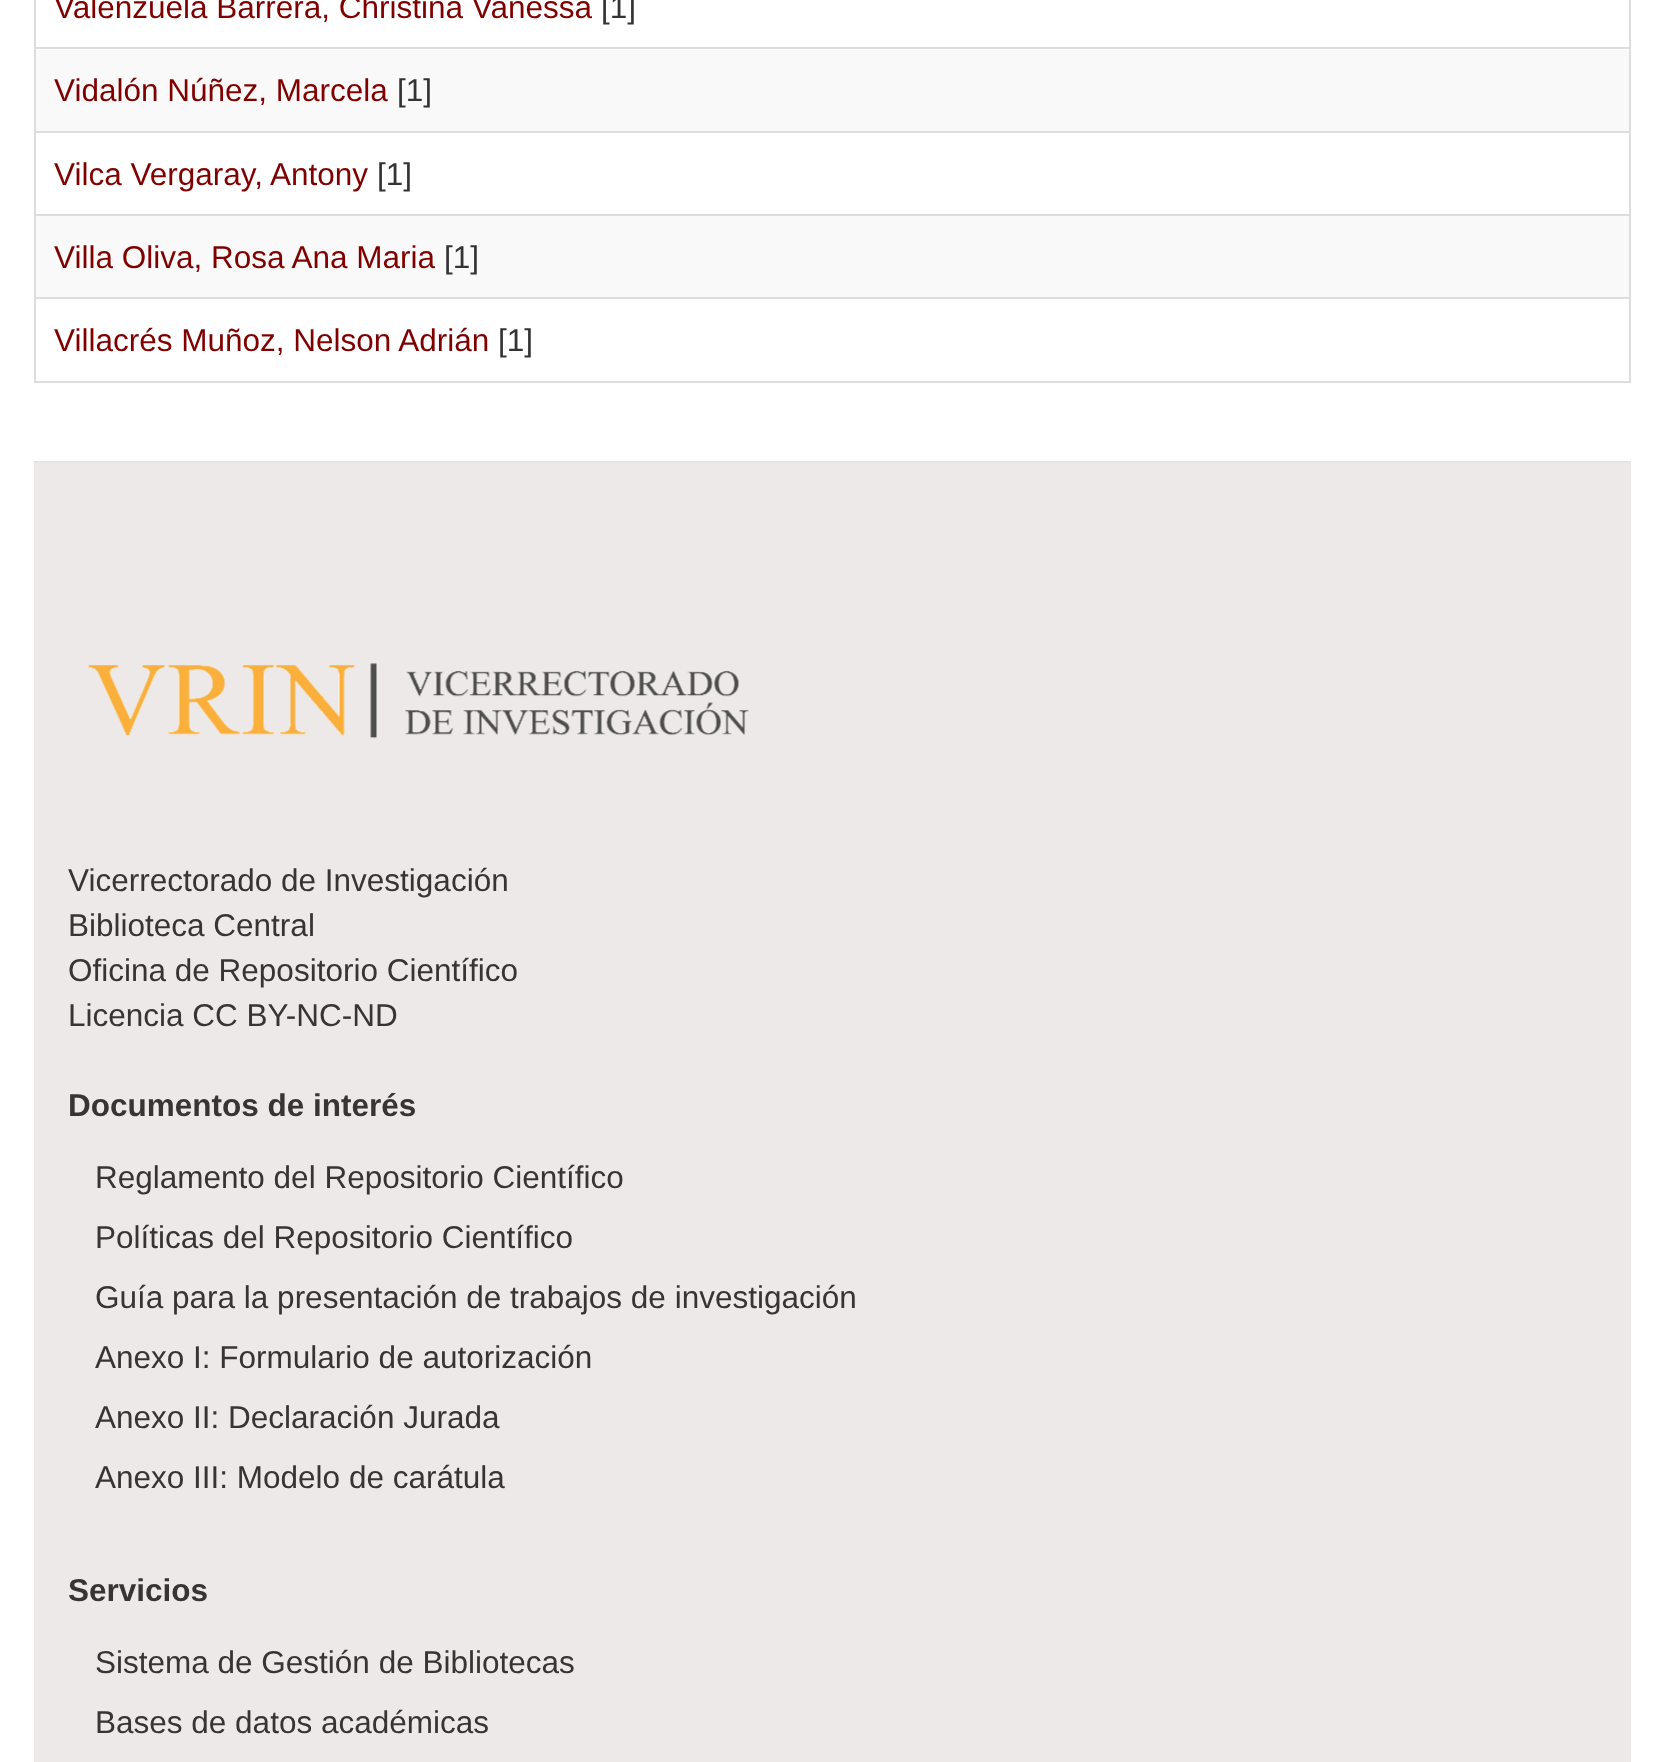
async function draw(canvas) {
	canvas.width = 1663;
	canvas.height = 1762;
	const c = canvas.getContext('2d');
	c.miterLimit = 4;
	c.fontKerning = 'normal';
	async function loadImage(src) {
		const img = new Image();
		img.src = src;
		await img.decode();
		return img;
	}

	c.fillStyle = '#fff';
	c.fillRect(0, 0, 1663, 1762);
	c.strokeStyle = '#ddd';
	c.lineWidth = 2;
	c.strokeRect(35, -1, 1595, 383);
	c.font = '31.5px Liberation Sans';
	c.fillStyle = '#800000';
	c.fillText('Valenzuela Barrera, Christina Vanessa', 54, 18);
	c.fillStyle = '#333';
	c.fillText('[1]', 601, 18);
	c.fillStyle = '#f9f9f9';
	c.fillRect(36, 50, 1593, 81);
	c.fillStyle = '#ddd';
	c.fillRect(36, 47, 1593, 2);
	c.fillStyle = '#800000';
	c.fillText('Vidalón Núñez, Marcela', 54, 101);
	c.fillStyle = '#333';
	c.fillText('[1]', 397, 101);
	c.fillStyle = '#ddd';
	c.fillRect(36, 131, 1593, 2);
	c.fillStyle = '#800000';
	c.fillText('Vilca Vergaray, Antony', 54, 185);
	c.fillStyle = '#333';
	c.fillText('[1]', 377, 185);
	c.fillStyle = '#f9f9f9';
	c.fillRect(36, 216, 1593, 81);
	c.fillStyle = '#ddd';
	c.fillRect(36, 214, 1593, 2);
	c.fillStyle = '#800000';
	c.fillText('Villa Oliva, Rosa Ana Maria', 54, 268);
	c.fillStyle = '#333';
	c.fillText('[1]', 444, 268);
	c.fillStyle = '#ddd';
	c.fillRect(36, 297, 1593, 2);
	c.fillStyle = '#800000';
	c.fillText('Villacrés Muñoz, Nelson Adrián', 54, 351);
	c.fillStyle = '#333';
	c.fillText('[1]', 498, 351);
	c.fillStyle = '#ede9e9';
	c.fillRect(34, 463, 1597, 1299);
	c.fillStyle = '#e5e5e5';
	c.fillRect(34, 461, 1597, 2);
	c.drawImage(await loadImage('img1.png'), 88, 663, 661, 76);
	c.fillStyle = '#393434';
	for (const [text, x, y] of [
		['Vicerrectorado de Investigación', 68, 891],
		['Biblioteca Central', 68, 936],
		['Oficina de Repositorio Científico', 68, 981],
		['Licencia CC BY-NC-ND', 68, 1026],
	]) {
		c.fillText(text, x, y);
	}
	c.font = 'bold 31.5px Liberation Sans';
	c.fillText('Documentos de interés', 68, 1116);
	c.font = '31.5px Liberation Sans';
	for (const [text, x, y] of [
		['Reglamento del Repositorio Científico', 95, 1188],
		['Políticas del Repositorio Científico', 95, 1248],
		['Guía para la presentación de trabajos de investigación', 95, 1308],
		['Anexo I: Formulario de autorización', 95, 1368],
		['Anexo II: Declaración Jurada', 95, 1428],
		['Anexo III: Modelo de carátula', 95, 1488],
	]) {
		c.fillText(text, x, y);
	}
	c.font = 'bold 31.5px Liberation Sans';
	c.fillText('Servicios', 68, 1601);
	c.font = '31.5px Liberation Sans';
	c.fillText('Sistema de Gestión de Bibliotecas', 95, 1673);
	c.fillText('Bases de datos académicas', 95, 1733);
}

draw(document.querySelector('canvas'));
